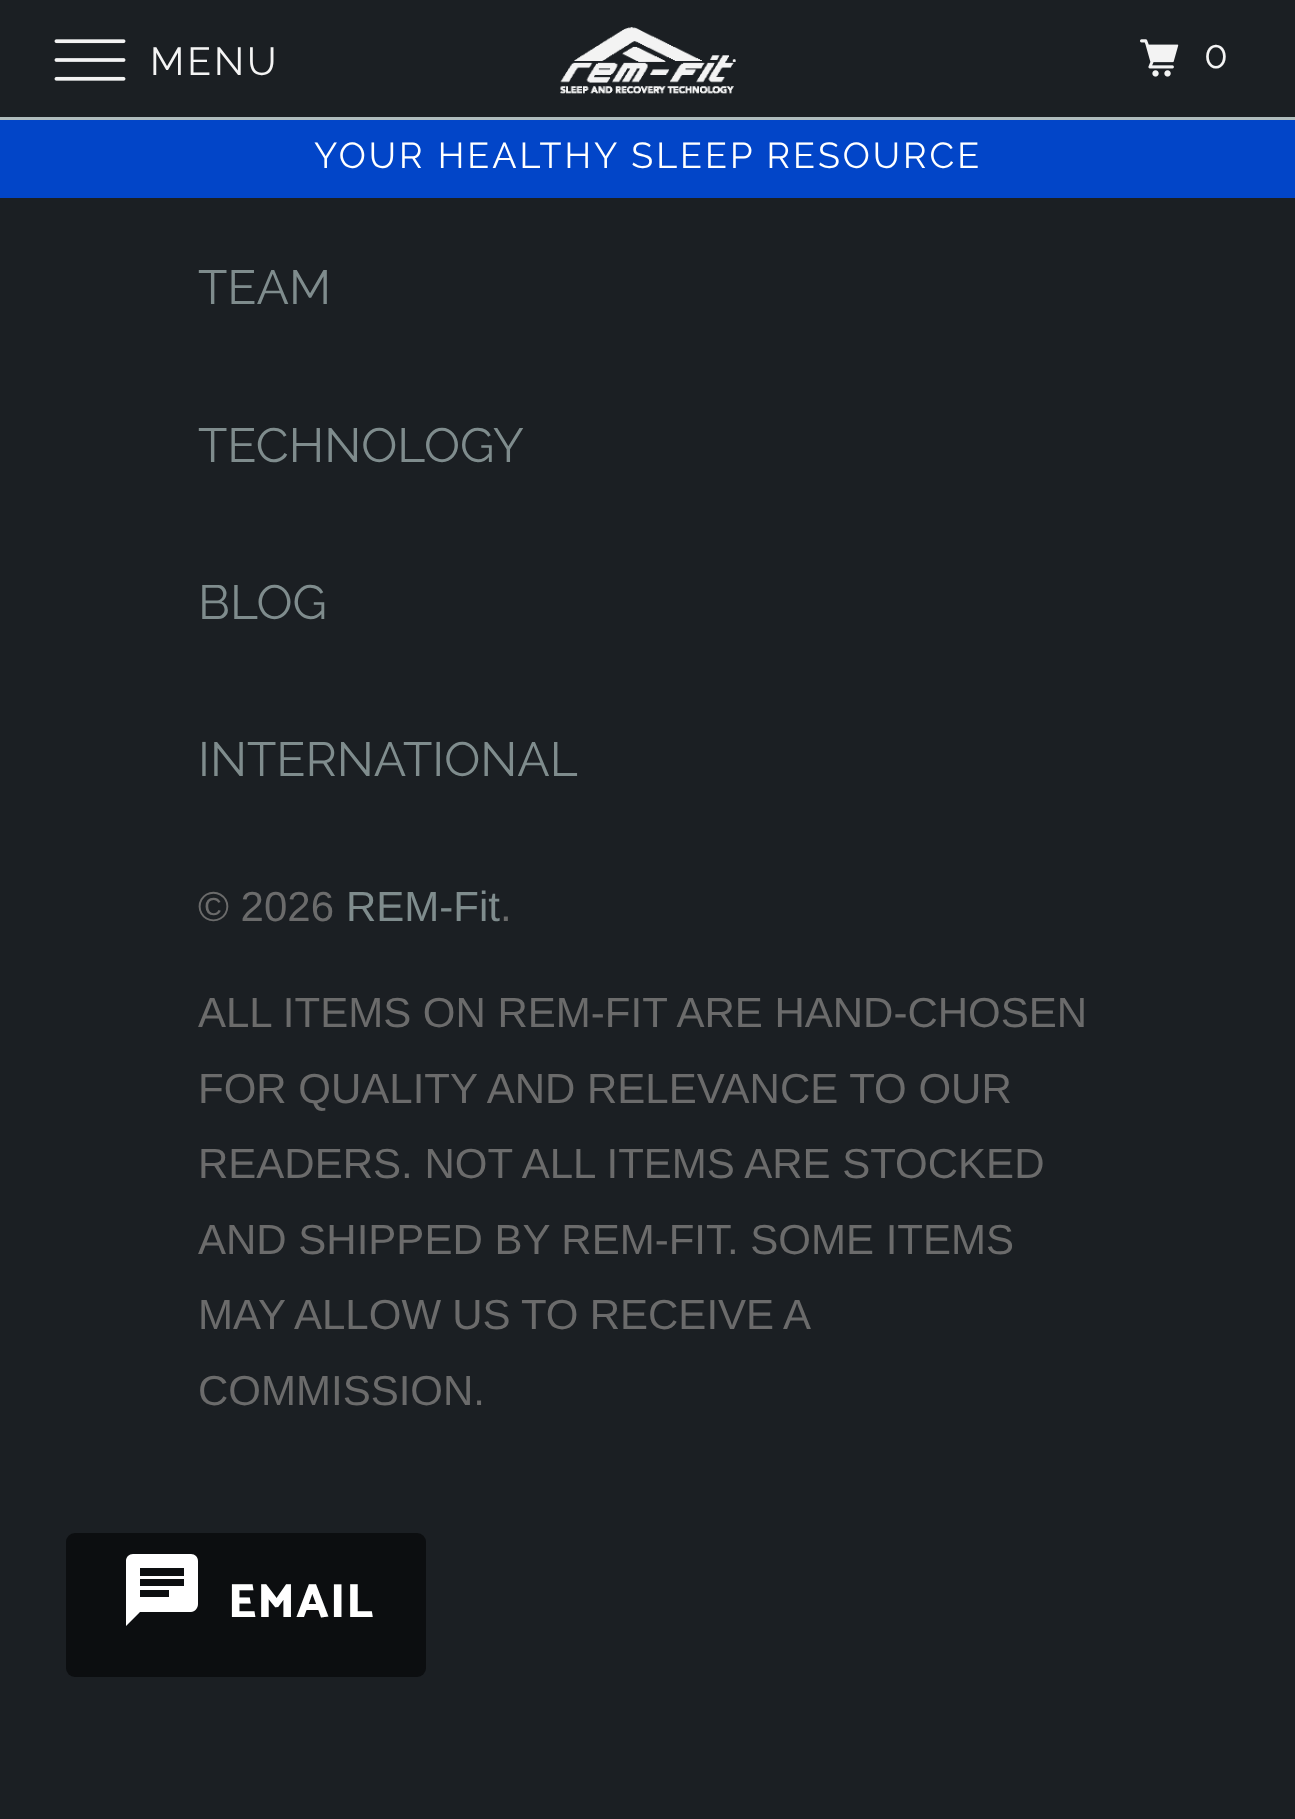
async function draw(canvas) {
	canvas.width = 1295;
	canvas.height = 1819;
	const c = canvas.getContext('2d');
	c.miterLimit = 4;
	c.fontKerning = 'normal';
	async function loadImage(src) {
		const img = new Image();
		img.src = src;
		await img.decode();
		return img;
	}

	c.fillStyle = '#1b1f23';
	c.fillRect(0, 0, 1295, 1819);
	c.fillStyle = '#b8c6c6f2';
	c.fillRect(0, 117, 1295, 3);
	c.drawImage(await loadImage('img1.png'), 54, 39, 72, 42);
	c.letterSpacing = '3px';
	c.font = '39px Raleway';
	c.fillStyle = '#f4f4f4';
	c.fillText('MENU', 150, 75);
	c.drawImage(await loadImage('img2.png'), 560, 27, 176, 67);
	c.drawImage(await loadImage('img3.png'), 1140, 39, 39, 38);
	c.fillText('0', 1204, 68);
	c.fillStyle = '#0245c8';
	c.fillRect(0, 120, 1295, 78);
	c.font = '36px Raleway';
	c.fillStyle = '#fff';
	c.fillText('YOUR HEALTHY SLEEP RESOURCE', 314, 168);
	c.letterSpacing = '0px';
	c.font = '48px Raleway';
	c.fillStyle = '#7f8c8d';
	for (const [text, x, y] of [
		['TEAM', 198, 304],
		['TECHNOLOGY', 198, 462],
		['BLOG', 198, 619],
		['INTERNATIONAL', 198, 776],
	]) {
		c.fillText(text, x, y);
	}
	c.font = '42px Liberation Sans';
	c.fillStyle = '#6b6b6b';
	c.fillText('© 2026', 198, 921);
	c.fillStyle = '#7f8c8d';
	c.fillText('REM-Fit', 346, 921);
	c.fillStyle = '#6b6b6b';
	for (const [text, x, y] of [
		['.', 500, 921],
		['ALL ITEMS ON REM-FIT ARE HAND-CHOSEN', 198, 1027],
		['FOR QUALITY AND RELEVANCE TO OUR', 198, 1103],
		['READERS. NOT ALL ITEMS ARE STOCKED', 198, 1178],
		['AND SHIPPED BY REM-FIT. SOME ITEMS', 198, 1254],
	]) {
		c.fillText(text, x, y);
	}
	c.wordSpacing = '-0.5px';
	c.fillText('MAY ALLOW US TO RECEIVE A', 198, 1329);
	c.wordSpacing = '0px';
	c.fillText('COMMISSION.', 198, 1405);
	c.fillStyle = '#0c0e10';
	c.beginPath();
	c.roundRect(66, 1533, 360, 144, 9);
	c.fill();
	c.fillStyle = '#fff';
	c.beginPath();
	c.moveTo(191, 1554);
	c.lineTo(133, 1554);
	c.bezierCurveTo(129, 1554, 126, 1557, 126, 1561);
	c.lineTo(126, 1626);
	c.lineTo(140, 1612);
	c.lineTo(191, 1612);
	c.bezierCurveTo(195, 1612, 198, 1608, 198, 1604);
	c.lineTo(198, 1561);
	c.bezierCurveTo(198, 1557, 195, 1554, 191, 1554);
	c.moveTo(140, 1579);
	c.lineTo(184, 1579);
	c.lineTo(184, 1586);
	c.lineTo(140, 1586);
	c.moveTo(169, 1597);
	c.lineTo(140, 1597);
	c.lineTo(140, 1590);
	c.lineTo(169, 1590);
	c.moveTo(184, 1576);
	c.lineTo(140, 1576);
	c.lineTo(140, 1568);
	c.lineTo(184, 1568);
	c.fill();
	c.letterSpacing = '1px';
	c.font = '800 48px Catamaran';
	c.fillText('EMAIL', 228, 1617);
}

draw(document.querySelector('canvas'));
